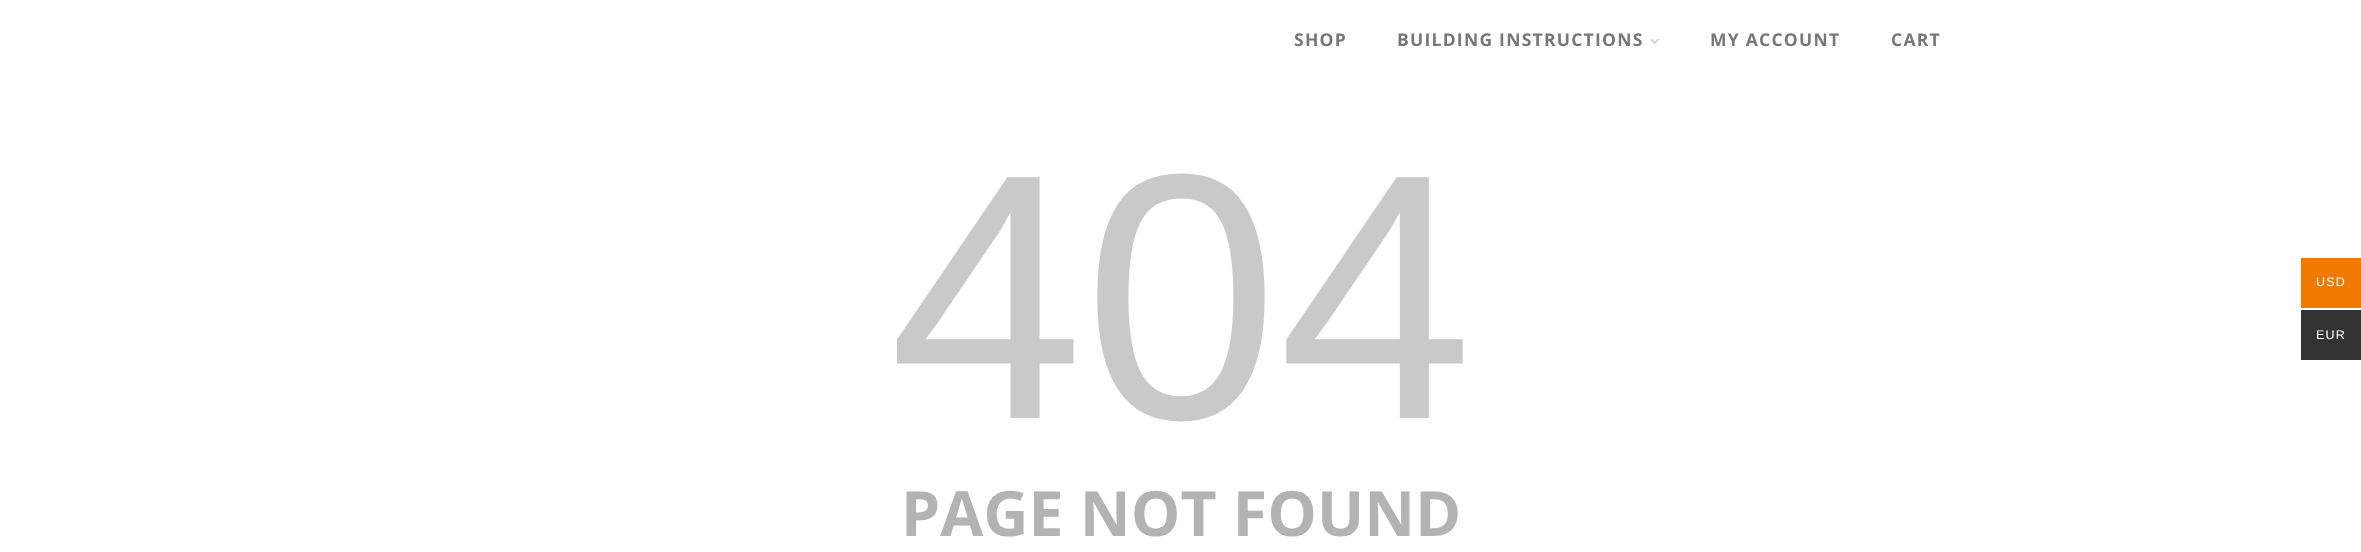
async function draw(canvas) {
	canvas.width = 2361;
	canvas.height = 552;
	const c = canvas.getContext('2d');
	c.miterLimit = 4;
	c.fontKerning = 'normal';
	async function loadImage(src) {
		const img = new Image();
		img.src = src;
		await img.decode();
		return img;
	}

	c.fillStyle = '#fff';
	c.fillRect(0, 0, 2361, 552);
	c.letterSpacing = '1.25px';
	c.font = 'bold 17.5px Open Sans';
	c.fillStyle = '#777';
	c.fillText('SHOP', 1294, 46);
	c.fillText('BUILDING INSTRUCTIONS', 1397, 46);
	c.drawImage(await loadImage('img1.png'), 1650, 39, 9, 5);
	c.fillText('MY ACCOUNT', 1710, 46);
	c.fillText('CART', 1891, 46);
	c.letterSpacing = '0px';
	c.font = '350px Liberation Sans';
	c.fillStyle = '#c9c9c9';
	c.fillText('404', 889, 418);
	c.font = 'bold 62.5px Open Sans';
	c.fillStyle = '#b3b3b3';
	c.fillText('PAGE NOT FOUND', 901, 536);
	c.fillStyle = '#f27900';
	c.fillRect(2301, 258, 60, 50);
	c.letterSpacing = '1.25px';
	c.font = '12.5px Liberation Sans';
	c.fillStyle = '#fff';
	c.fillText('USD', 2316, 286);
	c.fillStyle = '#333';
	c.fillRect(2301, 310, 60, 50);
	c.fillStyle = '#fff';
	c.fillText('EUR', 2316, 339);
}

draw(document.querySelector('canvas'));
